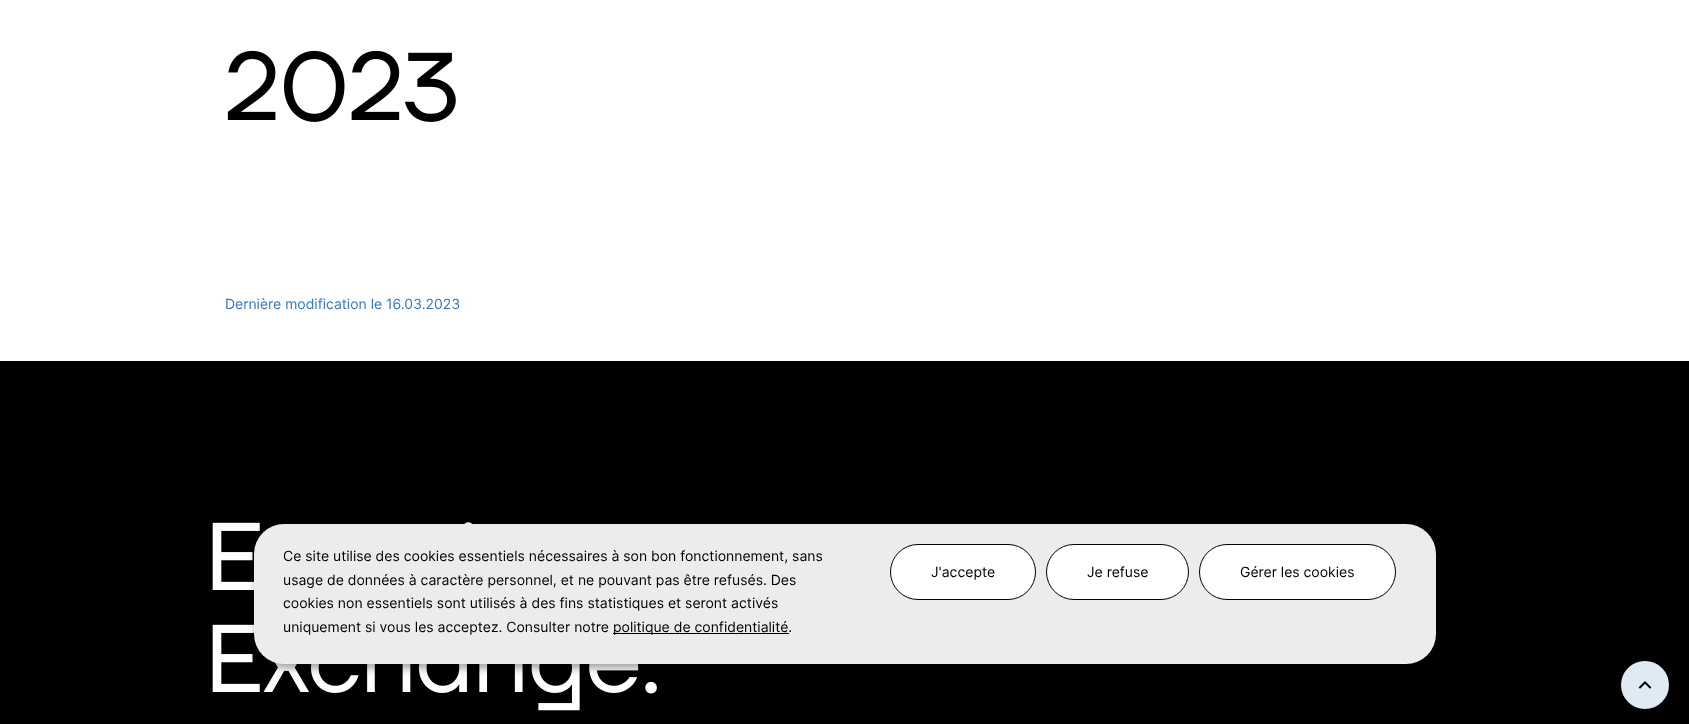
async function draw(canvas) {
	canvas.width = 1689;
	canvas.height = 724;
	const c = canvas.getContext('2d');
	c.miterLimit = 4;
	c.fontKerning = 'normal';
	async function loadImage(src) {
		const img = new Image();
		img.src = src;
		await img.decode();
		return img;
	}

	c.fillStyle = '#fff';
	c.fillRect(0, 0, 1689, 724);
	c.drawImage(await loadImage('img1.png'), 227, 50, 229, 72);
	c.font = '14px Inter';
	c.fillStyle = '#3479be';
	c.fillText('Dernière modification le 16.03.2023', 225, 309);
	c.fillStyle = '#000';
	c.fillRect(0, 361, 1689, 363);
	c.drawImage(await loadImage('img2.png'), 212, 522, 260, 68);
	c.drawImage(await loadImage('img3.png'), 212, 624, 445, 87);
	c.fillStyle = '#e0eaf5';
	c.beginPath();
	c.arc(1645, 685, 24, 0, 2 * Math.PI);
	c.fill();
	c.drawImage(await loadImage('img4.png'), 1638, 681, 14, 8);
	c.fillStyle = '#00000030';
	c.filter = 'blur(5px)';
	c.beginPath();
	c.roundRect(259, 529, 1182, 140, 30);
	c.fill();
	c.filter = 'none';
	c.fillStyle = '#00000033';
	c.filter = 'blur(3px)';
	c.beginPath();
	c.roundRect(254, 528, 1182, 140, 30);
	c.fill();
	c.filter = 'none';
	c.fillStyle = '#ececec';
	c.beginPath();
	c.roundRect(254, 524, 1182, 140, 30);
	c.fill();
	c.fillStyle = '#000';
	for (const [text, x, y] of [
		['Ce site utilise des cookies essentiels nécessaires à son bon fonctionnement, sans', 283, 561],
		['usage de données à caractère personnel, et ne pouvant pas être refusés. Des', 283, 585],
		['cookies non essentiels sont utilisés à des fins statistiques et seront activés', 283, 608],
		['uniquement si vous les acceptez. Consulter notre', 283, 632],
	]) {
		c.fillText(text, x, y);
	}
	c.fillRect(613, 633, 176, 1);
	c.fillText('politique de confidentialité.', 613, 632);
	c.fillStyle = '#fff';
	c.beginPath();
	c.roundRect(890.5, 544.5, 145, 55, 27.5);
	c.fill();
	c.strokeStyle = '#000';
	c.stroke();
	c.fillStyle = '#000';
	c.fillText('J\'accepte', 931, 577);
	c.fillStyle = '#fff';
	c.beginPath();
	c.roundRect(1046.5, 544.5, 142, 55, 27.5);
	c.fill();
	c.stroke();
	c.fillStyle = '#000';
	c.fillText('Je refuse', 1087, 577);
	c.fillStyle = '#fff';
	c.beginPath();
	c.roundRect(1199.5, 544.5, 196, 55, 27.5);
	c.fill();
	c.stroke();
	c.fillStyle = '#000';
	c.fillText('Gérer les cookies', 1240, 577);
}

draw(document.querySelector('canvas'));
